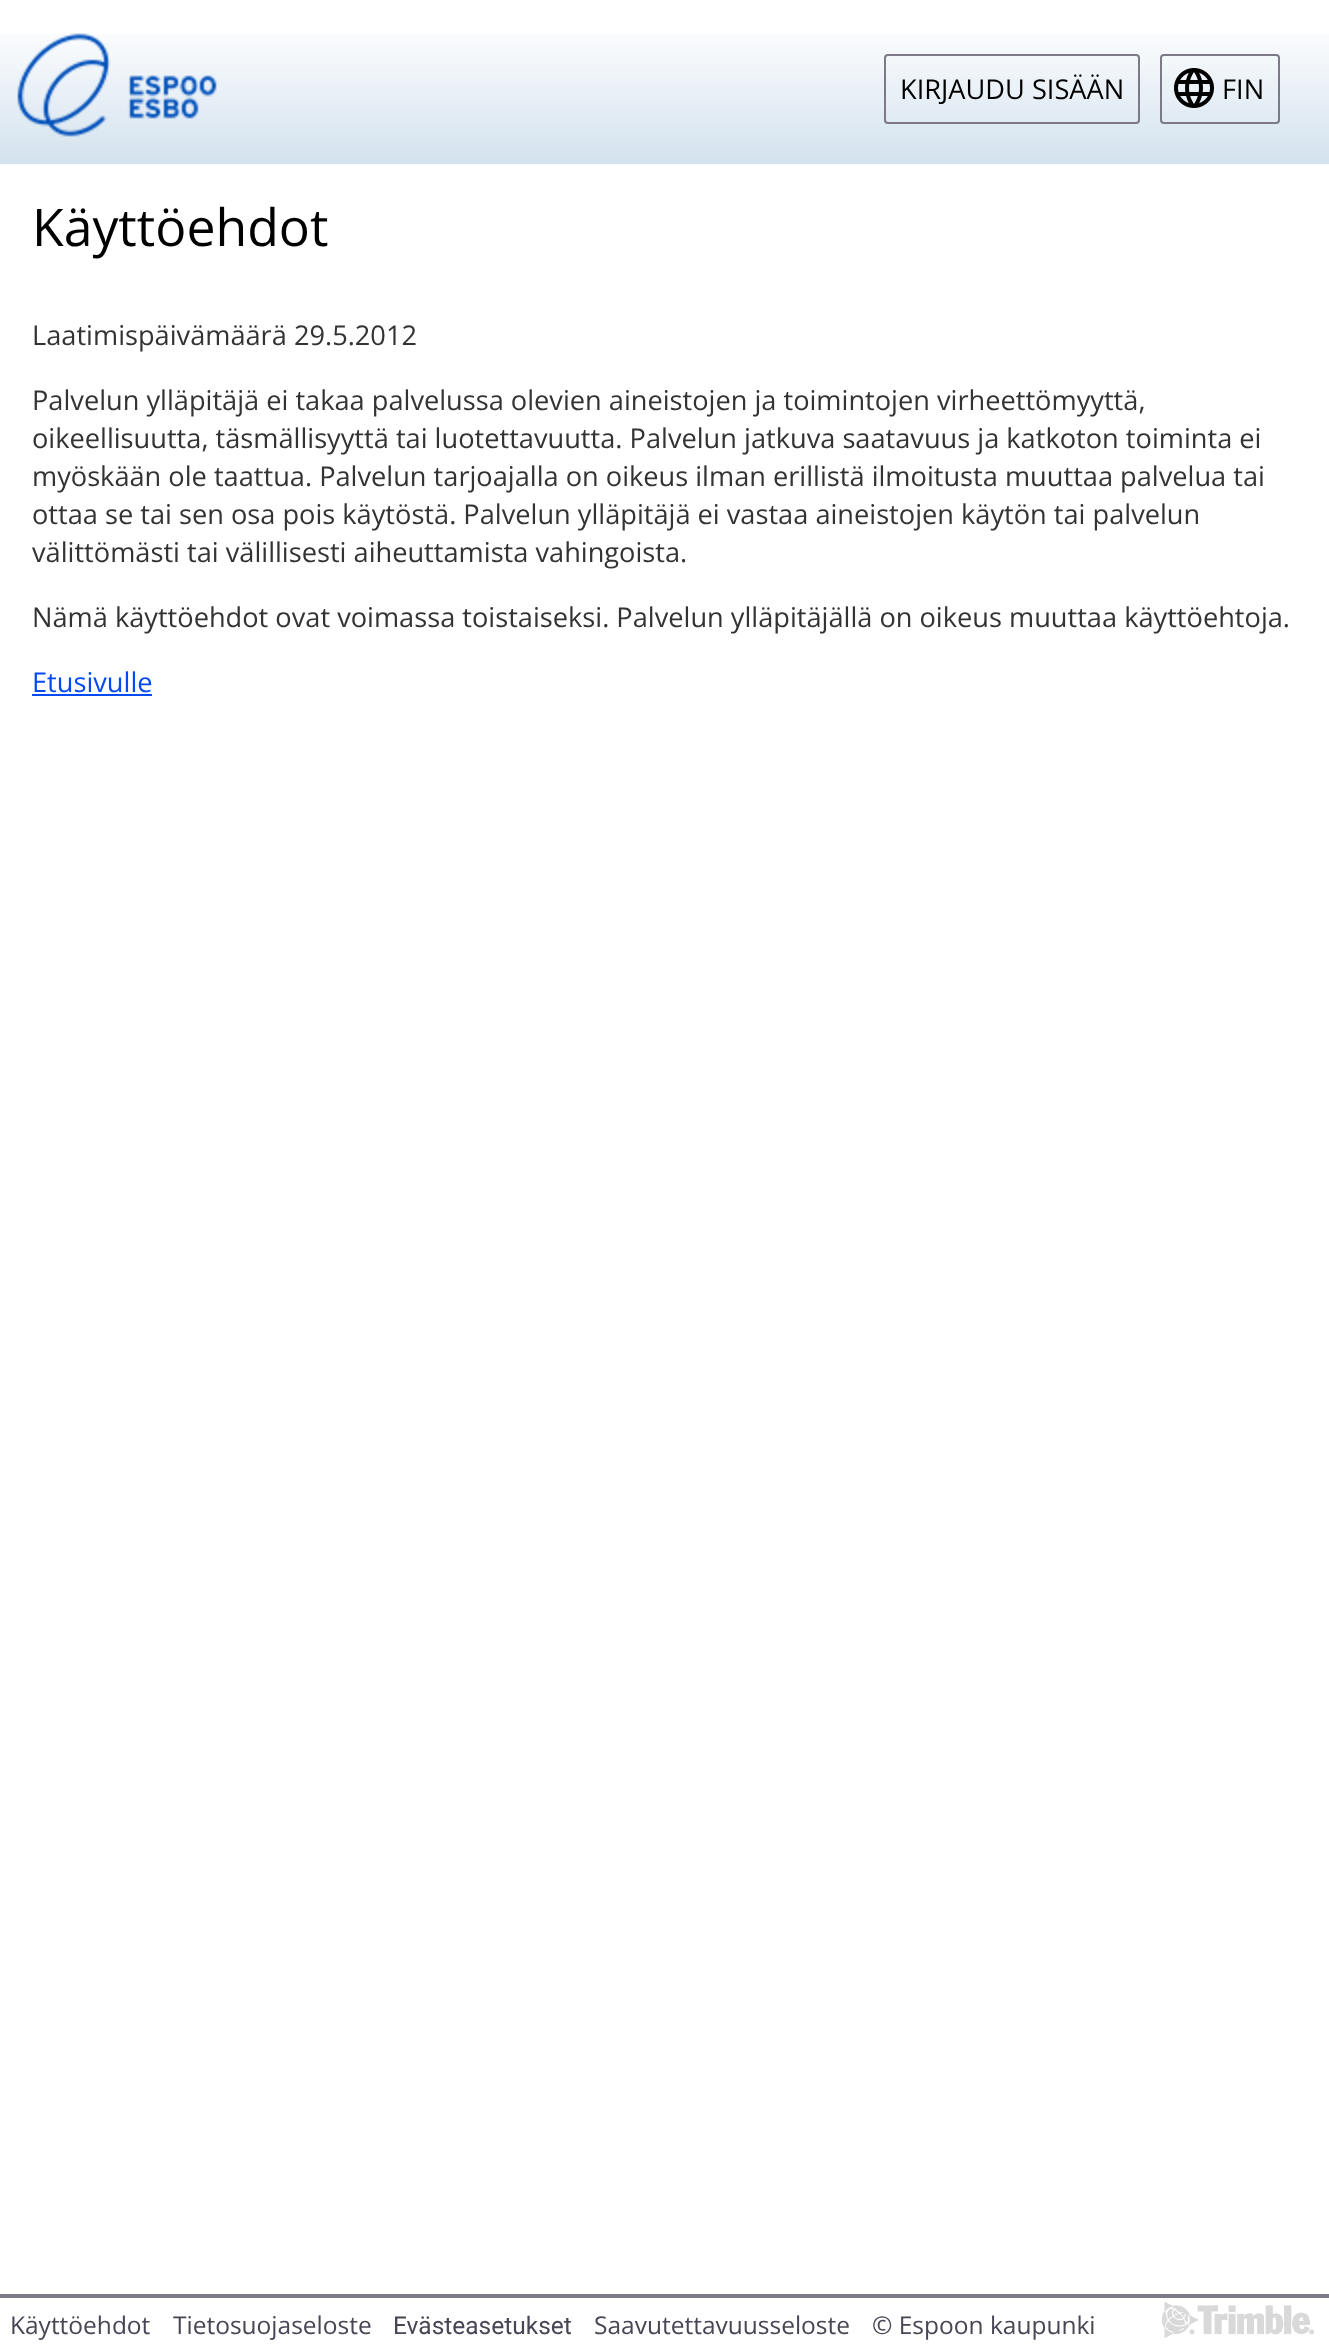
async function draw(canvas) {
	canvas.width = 1329;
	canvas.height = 2344;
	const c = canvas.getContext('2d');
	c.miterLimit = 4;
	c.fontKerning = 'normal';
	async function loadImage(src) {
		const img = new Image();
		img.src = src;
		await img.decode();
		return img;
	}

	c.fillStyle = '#fff';
	c.fillRect(0, 0, 1329, 2344);
	c.drawImage(await loadImage('img1.png'), 0, 34, 1329, 130);
	c.drawImage(await loadImage('img2.png'), 17, 33, 200, 104);
	c.beginPath();
	c.roundRect(885, 55, 254, 68, 3);
	c.strokeStyle = '#7b7a86';
	c.lineWidth = 2;
	c.stroke();
	c.font = '27.2px Open Sans';
	c.fillStyle = '#000';
	c.fillText('KIRJAUDU SISÄÄN', 900, 99);
	c.drawImage(await loadImage('img3.png'), 1174, 68, 40, 40);
	c.beginPath();
	c.roundRect(1161, 55, 118, 68, 3);
	c.stroke();
	c.fillText('FIN', 1222, 99);
	c.font = '51.75px Open Sans';
	c.fillText('Käyttöehdot', 32, 246);
	c.font = '27.2px Open Sans';
	c.fillStyle = '#333';
	for (const [text, x, y] of [
		['Laatimispäivämäärä 29.5.2012', 32, 345],
		['Palvelun ylläpitäjä ei takaa palvelussa olevien aineistojen ja toimintojen virheettömyyttä,', 32, 410],
		['oikeellisuutta, täsmällisyyttä tai luotettavuutta. Palvelun jatkuva saatavuus ja katkoton toiminta ei', 32, 448],
		['myöskään ole taattua. Palvelun tarjoajalla on oikeus ilman erillistä ilmoitusta muuttaa palvelua tai', 32, 486],
		['ottaa se tai sen osa pois käytöstä. Palvelun ylläpitäjä ei vastaa aineistojen käytön tai palvelun', 32, 524],
		['välittömästi tai välillisesti aiheuttamista vahingoista.', 32, 562],
		['Nämä käyttöehdot ovat voimassa toistaiseksi. Palvelun ylläpitäjällä on oikeus muuttaa käyttöehtoja.', 32, 627],
	]) {
		c.fillText(text, x, y);
	}
	c.fillStyle = '#034af3';
	c.fillText('Etusivulle', 32, 692);
	c.fillRect(32, 694, 120, 2);
	c.fillStyle = '#7b7a86';
	c.fillRect(0, 2294, 1329, 4);
	c.font = '24.5px Open Sans';
	c.fillStyle = '#474655';
	c.fillText('Käyttöehdot', 10, 2334);
	c.fillText('Tietosuojaseloste', 173, 2334);
	c.font = '24.5px Roboto';
	c.fillText('Evästeasetukset', 393, 2334);
	c.font = '24.5px Open Sans';
	c.fillText('Saavutettavuusseloste', 594, 2334);
	c.fillText('© Espoon kaupunki', 872, 2334);
	c.drawImage(await loadImage('img4.png'), 1162, 2302, 152, 36);
}

draw(document.querySelector('canvas'));
